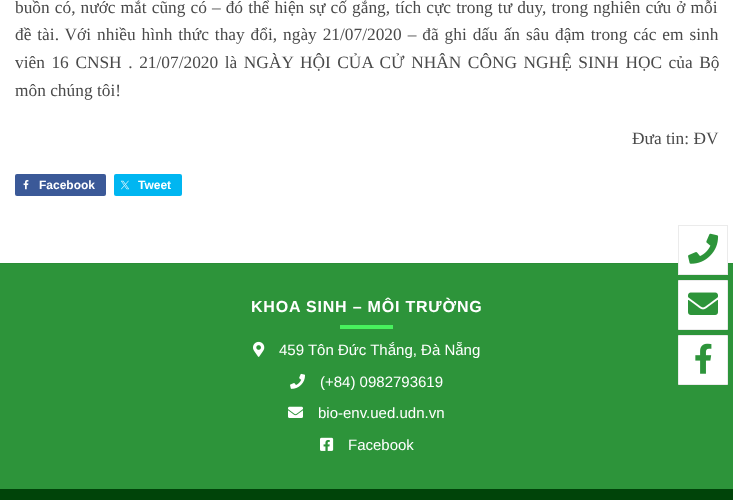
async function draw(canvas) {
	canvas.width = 733;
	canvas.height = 500;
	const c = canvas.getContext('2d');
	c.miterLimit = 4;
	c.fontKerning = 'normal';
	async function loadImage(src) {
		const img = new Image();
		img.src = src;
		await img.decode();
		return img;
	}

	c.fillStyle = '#fff';
	c.fillRect(0, 0, 733, 500);
	c.wordSpacing = '0.75px';
	c.font = '17.35px Liberation Serif';
	c.fillStyle = '#4a4a4a';
	c.fillText('buồn có, nước mắt cũng có – đó thể hiện sự cố gắng, tích cực trong tư duy, trong nghiên cứu ở mỗi', 15, 13);
	c.wordSpacing = '1.6px';
	c.fillText('đề tài. Với nhiều hình thức thay đổi, ngày 21/07/2020 – đã ghi dấu ấn sâu đậm trong các em sinh', 15, 40);
	c.wordSpacing = '2.25px';
	c.fillText('viên 16 CNSH . 21/07/2020 là NGÀY HỘI CỦA CỬ NHÂN CÔNG NGHỆ SINH HỌC của Bộ', 15, 68);
	c.wordSpacing = '0px';
	c.fillText('môn chúng tôi!', 15, 96);
	c.fillText('Đưa tin: ĐV', 632, 144);
	c.fillStyle = '#3b5998';
	c.beginPath();
	c.roundRect(15, 174, 91, 22, 2);
	c.fill();
	c.drawImage(await loadImage('img1.png'), 23, 180, 6, 10);
	c.font = 'bold 12px Liberation Sans';
	c.fillStyle = '#fff';
	c.fillText('Facebook', 39, 189);
	c.fillStyle = '#00b6f1';
	c.beginPath();
	c.roundRect(114, 174, 68, 22, 2);
	c.fill();
	c.drawImage(await loadImage('img2.png'), 120, 180, 10, 10);
	c.fillStyle = '#fff';
	c.fillText('Tweet', 138, 189);
	c.fillStyle = '#2d943a';
	c.fillRect(0, 264, 733, 225);
	c.fillStyle = '#2b8d37';
	c.fillRect(0, 263, 733, 1);
	c.letterSpacing = '0.8px';
	c.font = 'bold 16px Liberation Sans';
	c.fillStyle = '#fff';
	c.fillText('KHOA SINH – MÔI TRƯỜNG', 251, 312);
	c.fillStyle = '#48f15d';
	c.fillRect(340, 325, 53, 4);
	c.drawImage(await loadImage('img3.png'), 253, 341, 12, 16);
	c.letterSpacing = '0px';
	c.font = '15px Liberation Sans';
	c.fillStyle = '#fff';
	c.fillText('459 Tôn Đức Thắng, Đà Nẵng', 279, 355);
	c.drawImage(await loadImage('img4.png'), 290, 373, 15, 16);
	c.fillText('(+84) 0982793619', 320, 387);
	c.drawImage(await loadImage('img5.png'), 288, 406, 15, 12);
	c.fillText('bio-env.ued.udn.vn', 318, 418);
	c.drawImage(await loadImage('img6.png'), 320, 437, 14, 14);
	c.fillText('Facebook', 348, 450);
	c.fillStyle = '#004409';
	c.fillRect(0, 489, 733, 11);
	c.fillStyle = '#fff';
	c.fillRect(679, 263, 48, 11);
	c.strokeStyle = '#ebebeb';
	c.strokeRect(678.5, 225.5, 49, 49);
	c.drawImage(await loadImage('img7.png'), 688, 233, 31, 31);
	c.beginPath();
	c.rect(678.5, 280.5, 49, 49);
	c.fill();
	c.stroke();
	c.drawImage(await loadImage('img8.png'), 688, 292, 30, 23);
	c.beginPath();
	c.rect(678.5, 335.5, 49, 49);
	c.fill();
	c.stroke();
	c.drawImage(await loadImage('img9.png'), 695, 343, 17, 31);
}

draw(document.querySelector('canvas'));
